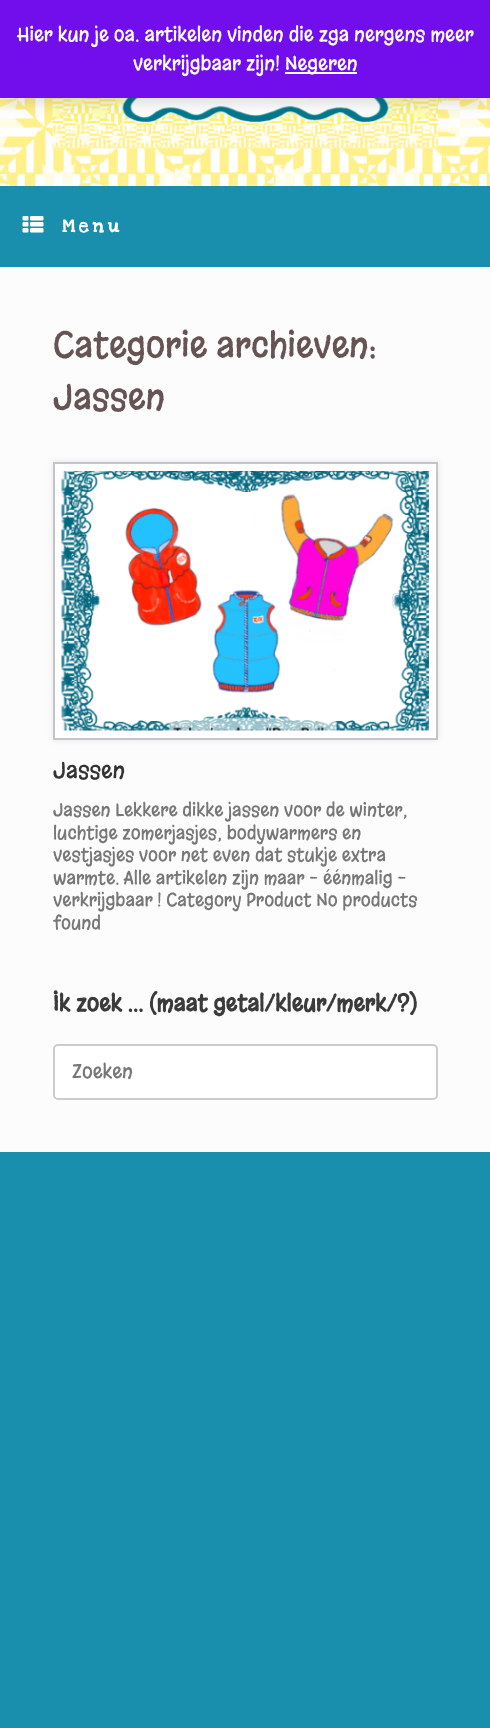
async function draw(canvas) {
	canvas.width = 490;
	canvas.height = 1728;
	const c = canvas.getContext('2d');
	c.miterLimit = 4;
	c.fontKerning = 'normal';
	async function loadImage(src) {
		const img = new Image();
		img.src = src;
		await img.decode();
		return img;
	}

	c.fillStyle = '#1a8fad';
	c.fillRect(0, 0, 490, 1728);
	c.drawImage(await loadImage('img1.png'), 0, 98, 490, 88);
	c.drawImage(await loadImage('img2.png'), 52, 98, 386, 51);
	c.fillStyle = '#00000033';
	c.filter = 'blur(10px)';
	c.beginPath();
	c.rect(0, 2, 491, 97);
	c.fill();
	c.filter = 'none';
	c.fillStyle = '#720eec';
	c.fillRect(0, 0, 490, 98);
	c.font = '19.5px Margarine';
	c.fillStyle = '#fff';
	c.fillText('Hier kun je oa. artikelen vinden die zga nergens meer', 17, 41);
	c.fillText('verkrijgbaar zijn!', 133, 70);
	c.fillStyle = '#fcfbfe';
	c.fillRect(285, 72, 72, 2);
	c.fillStyle = '#fff';
	c.fillText('Negeren', 285, 70);
	c.drawImage(await loadImage('img3.png'), 22, 216, 22, 17);
	c.letterSpacing = '4px';
	c.font = 'bold 19.5px Love Ya Like A Sister';
	c.fillText('Menu', 62, 232);
	c.fillStyle = '#fcfcfc';
	c.fillRect(0, 267, 490, 885);
	c.letterSpacing = '0px';
	c.font = '35px Margarine';
	c.fillStyle = '#665454';
	c.fillText('Categorie archieven:', 53, 357);
	c.fillText('Jassen', 53, 409);
	c.fillStyle = '#0000001a';
	c.filter = 'blur(3px)';
	c.beginPath();
	c.rect(53, 462, 385, 278);
	c.fill();
	c.filter = 'none';
	c.fillStyle = '#fff';
	c.beginPath();
	c.rect(54, 463, 383, 276);
	c.fill();
	c.strokeStyle = '#c2c5ca';
	c.lineWidth = 2;
	c.stroke();
	c.drawImage(await loadImage('img4.png'), 61, 471, 368, 260);
	c.font = '22.5px Margarine';
	c.fillStyle = '#333';
	c.fillText('Jassen', 53, 778);
	c.font = '18px Margarine';
	c.fillStyle = '#777';
	for (const [text, x, y] of [
		['Jassen Lekkere dikke jassen voor de winter,', 53, 816],
		['luchtige zomerjasjes, bodywarmers en', 53, 839],
		['vestjasjes voor net even dat stukje extra', 53, 861],
		['warmte. Alle artikelen zijn maar – éénmalig –', 53, 884],
		['verkrijgbaar ! Category Product No products', 53, 906],
		['found', 53, 929],
	]) {
		c.fillText(text, x, y);
	}
	c.font = 'bold 22.5px Margarine';
	c.fillStyle = '#3b3b3b';
	c.fillText('Ik zoek … (maat getal/kleur/merk/?)', 53, 1011);
	c.fillStyle = '#fff';
	c.beginPath();
	c.roundRect(54, 1045, 383, 54, 4);
	c.fill();
	c.strokeStyle = '#ccc';
	c.stroke();
	c.font = '19.5px Margarine';
	c.fillStyle = '#777';
	c.fillText('Zoeken', 72, 1078);
}

draw(document.querySelector('canvas'));
